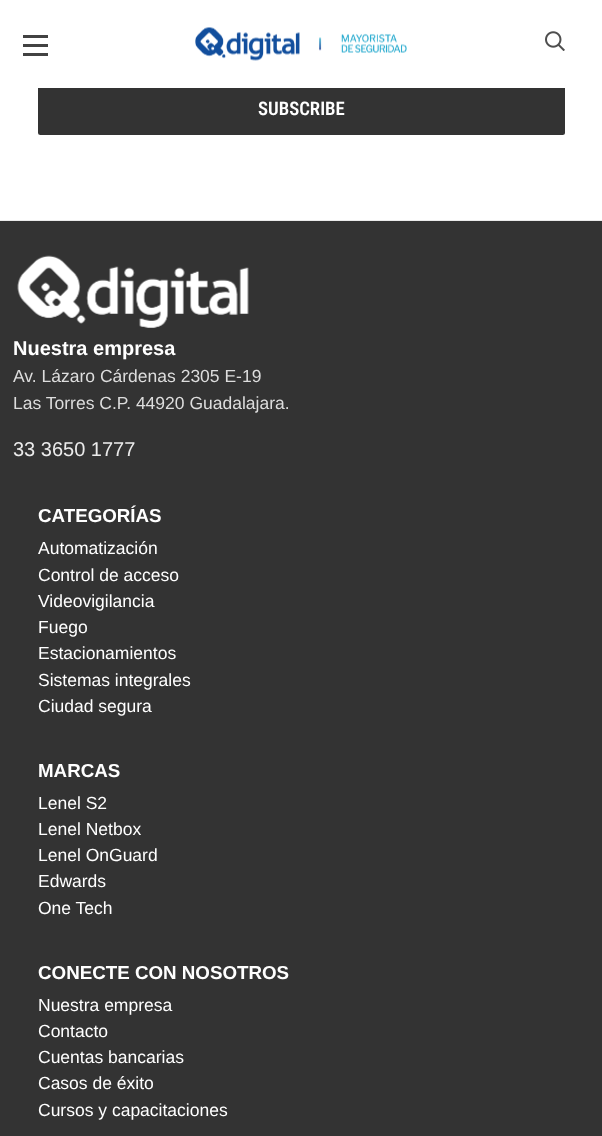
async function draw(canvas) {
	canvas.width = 602;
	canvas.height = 1136;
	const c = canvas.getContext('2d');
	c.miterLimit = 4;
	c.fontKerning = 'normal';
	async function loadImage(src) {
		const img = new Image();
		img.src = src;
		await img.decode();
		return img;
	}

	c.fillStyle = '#fff';
	c.fillRect(0, 0, 602, 1136);
	for (const [x, y, w, h, color] of [
		[23, 44, 25, 3, '#424242'],
		[23, 35, 25, 3, '#424242'],
		[23, 53, 25, 3, '#424242'],
	]) {
		c.fillStyle = color;
		c.fillRect(x, y, w, h);
	}
	c.fillStyle = '#333';
	c.beginPath();
	c.roundRect(38, 83, 527, 52, 2.5);
	c.fill();
	c.fillStyle = '#fff';
	c.fillRect(38, 83, 527, 5);
	c.drawImage(await loadImage('img1.png'), 195, 27, 212, 34);
	c.drawImage(await loadImage('img2.png'), 545, 31, 20, 20);
	c.font = '600 18.75px Roboto Condensed';
	c.fillText('SUBSCRIBE', 258, 115);
	c.fillStyle = '#333';
	c.fillRect(0, 221, 602, 915);
	c.fillStyle = '#ebebeb';
	c.fillRect(0, 220, 602, 1);
	c.drawImage(await loadImage('img3.png'), 17, 255, 232, 73);
	c.font = 'bold 20px Liberation Sans';
	c.fillStyle = '#fff';
	c.fillText('Nuestra empresa', 13, 355);
	c.font = '17.5px Liberation Sans';
	c.fillStyle = '#ddd';
	c.fillText('Av. Lázaro Cárdenas 2305 E-19', 13, 382);
	c.fillText('Las Torres C.P. 44920 Guadalajara.', 13, 409);
	c.font = '20px Liberation Sans';
	c.fillStyle = '#ebebeb';
	c.fillText('33 3650 1777', 13, 456);
	c.font = 'bold 18.75px Liberation Sans';
	c.fillStyle = '#fff';
	c.fillText('CATEGORÍAS', 38, 522);
	c.font = '17.5px Liberation Sans';
	for (const [text, x, y] of [
		['Automatización', 38, 554],
		['Control de acceso', 38, 581],
		['Videovigilancia', 38, 607],
		['Fuego', 38, 633],
		['Estacionamientos', 38, 659],
		['Sistemas integrales', 38, 686],
		['Ciudad segura', 38, 712],
	]) {
		c.fillText(text, x, y);
	}
	c.font = 'bold 18.75px Liberation Sans';
	c.fillText('MARCAS', 38, 777);
	c.font = '17.5px Liberation Sans';
	for (const [text, x, y] of [
		['Lenel S2', 38, 809],
		['Lenel Netbox', 38, 835],
		['Lenel OnGuard', 38, 861],
		['Edwards', 38, 887],
		['One Tech', 38, 914],
	]) {
		c.fillText(text, x, y);
	}
	c.font = 'bold 18.75px Liberation Sans';
	c.fillText('CONECTE CON NOSOTROS', 38, 979);
	c.font = '17.5px Liberation Sans';
	for (const [text, x, y] of [
		['Nuestra empresa', 38, 1011],
		['Contacto', 38, 1037],
		['Cuentas bancarias', 38, 1063],
		['Casos de éxito', 38, 1089],
		['Cursos y capacitaciones', 38, 1116],
	]) {
		c.fillText(text, x, y);
	}
}

draw(document.querySelector('canvas'));
